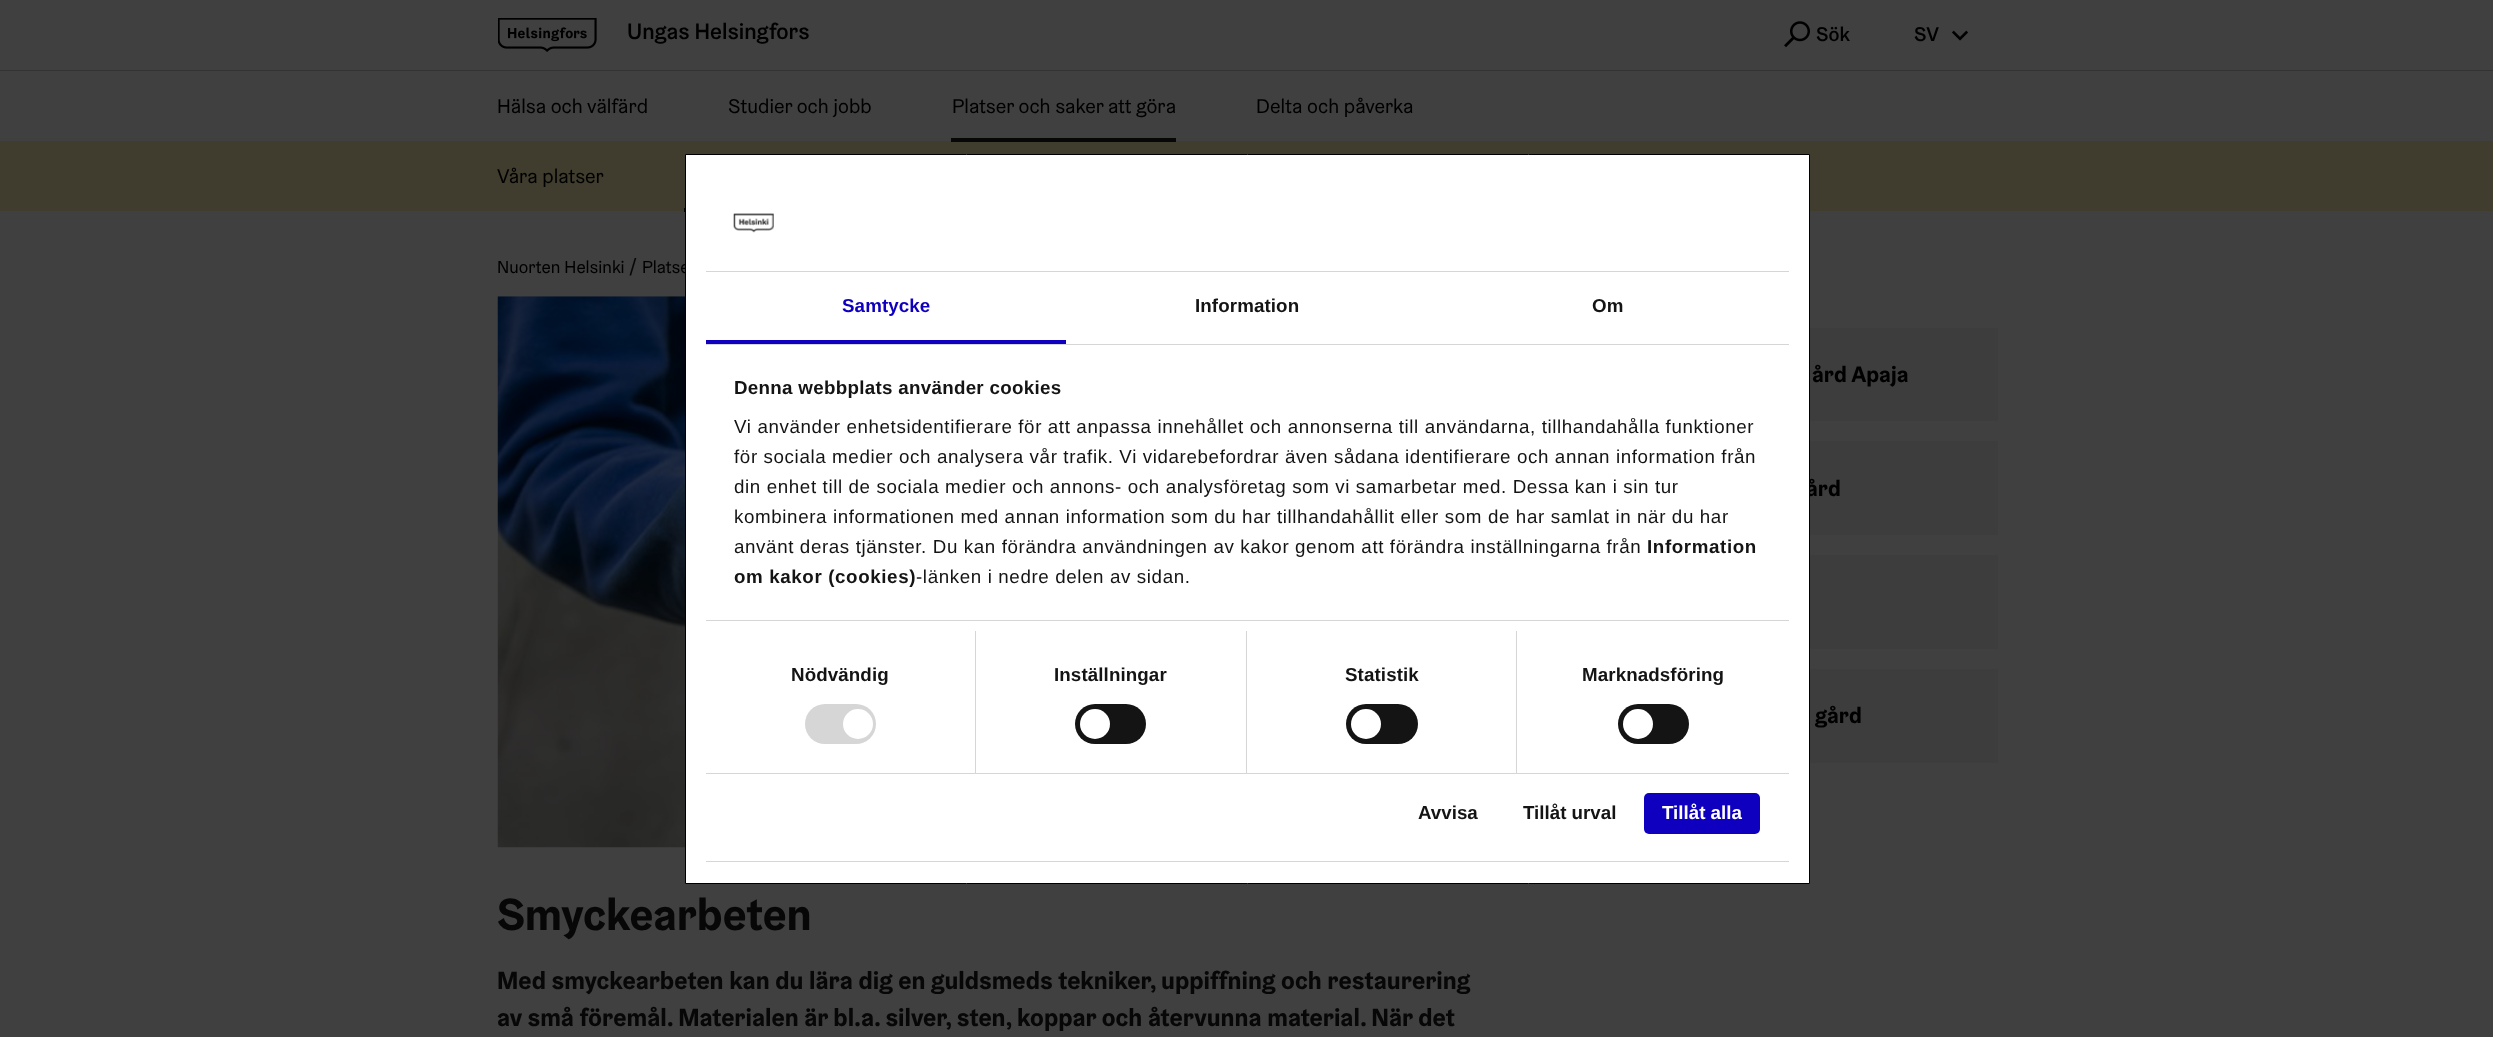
async function draw(canvas) {
	canvas.width = 2493;
	canvas.height = 1037;
	const c = canvas.getContext('2d');
	c.miterLimit = 4;
	c.fontKerning = 'normal';
	async function loadImage(src) {
		const img = new Image();
		img.src = src;
		await img.decode();
		return img;
	}

	c.fillStyle = '#404040';
	c.fillRect(0, 0, 2493, 1037);
	c.drawImage(await loadImage('img1.png'), 498, 18, 99, 34);
	c.font = '500 22.5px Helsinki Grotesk';
	c.fillStyle = '#000';
	c.fillText('Ungas Helsingfors', 627, 39);
	c.drawImage(await loadImage('img2.png'), 1784, 21, 26, 27);
	c.font = '500 20px Helsinki Grotesk';
	c.fillText('Sök', 1816, 41);
	c.fillText('SV', 1914, 41);
	c.drawImage(await loadImage('img3.png'), 1952, 30, 16, 11);
	c.fillStyle = '#333';
	c.fillRect(0, 70, 2493, 1);
	c.font = '20px Helsinki Grotesk';
	c.fillStyle = '#000';
	c.fillText('Platser och saker att göra', 952, 113);
	c.fillStyle = '#403d2e';
	c.fillRect(0, 141, 2493, 70);
	c.fillStyle = '#070707';
	c.fillRect(951, 138, 225, 4);
	c.fillStyle = '#000';
	c.fillText('Våra platser', 497, 183);
	c.fillStyle = '#070707';
	c.fillRect(684, 208, 1, 4);
	c.fillStyle = '#000';
	for (const [text, x, y] of [
		['Delta och påverka', 1256, 113],
		['Hälsa och välfärd', 497, 113],
		['Studier och jobb', 728, 113],
	]) {
		c.fillText(text, x, y);
	}
	c.font = '17.5px Helsinki Grotesk';
	c.fillText('Nuorten Helsinki', 497, 273);
	c.font = '20px Helsinki Grotesk';
	c.fillStyle = '#070707';
	c.fillText('/', 629, 273);
	c.font = '17.5px Helsinki Grotesk';
	c.fillStyle = '#000';
	c.fillText('Platse', 642, 273);
	c.drawImage(await loadImage('img4.png'), 497, 296, 188, 552);
	c.font = 'bold 45px Helsinki Grotesk';
	c.fillStyle = '#070707';
	c.fillText('Smyckearbeten', 497, 930);
	c.font = 'bold 25px Helsinki Grotesk';
	c.fillText('Med smyckearbeten kan du lära dig en guldsmeds tekniker, uppiffning och restaurering', 497, 989);
	c.fillText('av små föremål. Materialen är bl.a. silver, sten, koppar och återvunna material. När det', 497, 1026);
	c.fillStyle = '#3d3d3d';
	c.fillRect(1810, 328, 188, 93);
	c.font = 'bold 22.5px Helsinki Grotesk';
	c.fillStyle = '#000';
	c.fillText('ård Apaja', 1812, 382);
	c.fillStyle = '#3d3d3d';
	c.fillRect(1810, 441, 188, 94);
	c.fillStyle = '#000';
	c.fillText('ård', 1806, 496);
	c.fillStyle = '#3d3d3d';
	c.fillRect(1810, 555, 188, 94);
	c.fillRect(1810, 669, 188, 94);
	c.fillStyle = '#000';
	c.fillText('gård', 1815, 723);
	c.fillStyle = '#fff';
	c.beginPath();
	c.rect(685.5, 154.5, 1124, 729);
	c.fill();
	c.strokeStyle = '#000';
	c.stroke();
	c.fillStyle = '#d6d6d6';
	c.fillRect(706, 271, 1083, 1);
	c.drawImage(await loadImage('img5.png'), 733, 213, 41, 20);
	c.fillRect(706, 344, 1083, 1);
	c.fillStyle = '#0e00be';
	c.fillRect(706, 340, 360, 4);
	c.letterSpacing = '0.1px';
	c.font = 'bold 18.75px Liberation Sans';
	c.fillText('Samtycke', 842, 312);
	c.fillStyle = '#141414';
	c.fillText('Information', 1195, 312);
	c.fillText('Om', 1592, 312);
	c.fillStyle = '#d6d6d6';
	c.fillRect(706, 620, 1083, 1);
	c.letterSpacing = '0.3px';
	c.fillStyle = '#141414';
	c.fillText('Denna webbplats använder cookies', 734, 394);
	c.letterSpacing = '0.62px';
	c.font = '18.75px Liberation Sans';
	for (const [text, x, y] of [
		['Vi använder enhetsidentifierare för att anpassa innehållet och annonserna till användarna, tillhandahålla funktioner', 734, 433],
		['för sociala medier och analysera vår trafik. Vi vidarebefordrar även sådana identifierare och annan information från', 734, 463],
		['din enhet till de sociala medier och annons- och analysföretag som vi samarbetar med. Dessa kan i sin tur', 734, 493],
		['kombinera informationen med annan information som du har tillhandahållit eller som de har samlat in när du har', 734, 523],
		['använt deras tjänster. Du kan förändra användningen av kakor genom att förändra inställningarna från', 734, 553],
	]) {
		c.fillText(text, x, y);
	}
	c.font = 'bold 18.75px Liberation Sans';
	c.fillText('Information', 1647, 553);
	c.fillText('om kakor (cookies)', 734, 583);
	c.font = '18.75px Liberation Sans';
	c.fillText('-länken i nedre delen av sidan.', 916, 583);
	c.fillStyle = '#d6d6d6';
	c.fillRect(706, 773, 1083, 1);
	c.fillRect(975, 631, 1, 142);
	c.letterSpacing = '0.1px';
	c.font = 'bold 18.75px Liberation Sans';
	c.fillStyle = '#141414';
	c.fillText('Nödvändig', 791, 681);
	c.fillStyle = '#d6d6d6';
	c.beginPath();
	c.roundRect(805, 704, 71, 40, 20);
	c.fill();
	c.fillStyle = '#fff';
	c.beginPath();
	c.arc(858, 724, 15, 0, 2 * Math.PI);
	c.fill();
	c.fillStyle = '#d6d6d6';
	c.fillRect(1246, 631, 1, 142);
	c.fillStyle = '#141414';
	c.fillText('Inställningar', 1054, 681);
	c.beginPath();
	c.roundRect(1075, 704, 71, 40, 20);
	c.fill();
	c.fillStyle = '#fff';
	c.beginPath();
	c.arc(1095, 724, 15, 0, 2 * Math.PI);
	c.fill();
	c.fillStyle = '#d6d6d6';
	c.fillRect(1516, 631, 1, 142);
	c.fillStyle = '#141414';
	c.fillText('Statistik', 1345, 681);
	c.beginPath();
	c.roundRect(1346, 704, 72, 40, 20);
	c.fill();
	c.fillStyle = '#fff';
	c.beginPath();
	c.arc(1366, 724, 15, 0, 2 * Math.PI);
	c.fill();
	c.fillStyle = '#141414';
	c.fillText('Marknadsföring', 1582, 681);
	c.beginPath();
	c.roundRect(1618, 704, 71, 40, 20);
	c.fill();
	c.fillStyle = '#fff';
	c.beginPath();
	c.arc(1638, 724, 15, 0, 2 * Math.PI);
	c.fill();
	c.fillStyle = '#d6d6d6';
	c.fillRect(706, 861, 1083, 1);
	c.letterSpacing = '0px';
	c.fillStyle = '#141414';
	c.fillText('Avvisa', 1418, 819);
	c.fillText('Tillåt urval', 1523, 819);
	c.fillStyle = '#0e00be';
	c.beginPath();
	c.roundRect(1644, 793, 116, 41, 5);
	c.fill();
	c.fillStyle = '#fff';
	c.fillText('Tillåt alla', 1662, 819);
}

draw(document.querySelector('canvas'));
